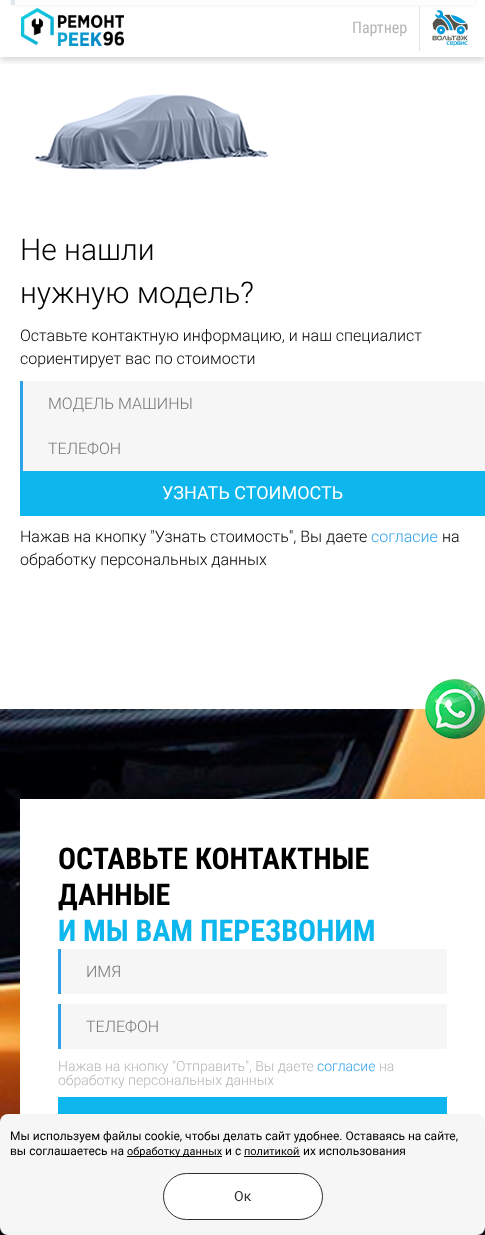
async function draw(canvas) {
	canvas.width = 485;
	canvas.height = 1235;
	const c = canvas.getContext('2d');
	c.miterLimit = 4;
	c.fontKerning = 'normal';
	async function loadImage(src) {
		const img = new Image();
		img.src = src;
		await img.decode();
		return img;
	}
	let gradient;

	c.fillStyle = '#fff';
	c.fillRect(0, 0, 485, 1235);
	c.fillStyle = '#dedede57';
	c.filter = 'blur(1.5px)';
	c.beginPath();
	c.rect(11, -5, 465, 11);
	c.fill();
	c.filter = 'none';
	gradient = c.createLinearGradient(243, -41, 243, 5);
	gradient.addColorStop(0, '#fff');
	gradient.addColorStop(1, '#fcfdfd');
	c.fillStyle = gradient;
	c.fillRect(10, 0, 465, 5);
	c.fillStyle = '#dee6f0';
	c.fillRect(11, 0, 4, 5);
	c.fillStyle = '#e0e7ed';
	c.fillRect(11, 0, 4, 4);
	c.save();
	c.beginPath();
	c.rect(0, 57, 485, 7);
	c.clip();
	c.fillStyle = '#0000002b';
	c.filter = 'blur(3.5px)';
	c.beginPath();
	c.rect(0, 3, 485, 57);
	c.fill();
	c.filter = 'none';
	c.restore();
	c.drawImage(await loadImage('img1.png'), 21, 8, 103, 38);
	c.fillStyle = '#e2e2e2';
	c.fillRect(419, 6, 1, 45);
	c.font = '16px Roboto Condensed';
	c.fillStyle = '#b5b5b5';
	c.fillText('Партнер', 352, 33);
	c.drawImage(await loadImage('img2.png'), 432, 10, 36, 36);
	c.drawImage(await loadImage('img3.png'), 34, 94, 235, 76);
	c.font = '300 30px Roboto';
	c.fillStyle = '#000';
	c.fillText('Не нашли', 20, 260);
	c.fillText('нужную модель?', 20, 303);
	c.font = '300 16px Roboto';
	c.fillText('Оставьте контактную информацию, и наш специалист', 20, 341);
	c.fillText('сориентирует вас по стоимости', 20, 364);
	c.fillStyle = '#f6f6f6';
	c.fillRect(23, 381, 462, 90);
	c.fillStyle = '#2fa2ea';
	c.fillRect(20, 381, 3, 90);
	c.fillStyle = '#757575';
	c.fillText('МОДЕЛЬ МАШИНЫ', 48, 409);
	c.fillText('ТЕЛЕФОН', 48, 454);
	c.fillStyle = '#0db7ee';
	c.fillRect(20, 471, 465, 45);
	c.font = '18px Roboto';
	c.fillStyle = '#fff';
	c.fillText('УЗНАТЬ СТОИМОСТЬ', 162, 499);
	c.font = '300 16px Roboto';
	c.fillStyle = '#000';
	c.fillText('Нажав на кнопку "Узнать стоимость", Вы даете', 20, 542);
	c.fillStyle = '#2fa2ea';
	c.fillText('согласие', 371, 542);
	c.fillStyle = '#000';
	c.fillText('на', 442, 542);
	c.fillText('обработку персональных данных', 20, 565);
	c.drawImage(await loadImage('img4.png'), 0, 709, 485, 526);
	c.fillStyle = '#fff';
	c.fillRect(20, 799, 465, 323);
	c.font = 'bold 30px Roboto Condensed';
	c.fillStyle = '#000';
	c.fillText('ОСТАВЬТЕ КОНТАКТНЫЕ', 58, 869);
	c.fillText('ДАННЫЕ', 58, 905);
	c.fillStyle = '#0db7ee';
	c.fillText('И МЫ ВАМ ПЕРЕЗВОНИМ', 58, 941);
	c.fillStyle = '#f6f6f6';
	c.fillRect(61, 949, 386, 45);
	c.fillStyle = '#2fa2ea';
	c.fillRect(58, 949, 3, 45);
	c.font = '300 16px Roboto';
	c.fillStyle = '#757575';
	c.fillText('ИМЯ', 86, 977);
	c.fillStyle = '#f6f6f6';
	c.fillRect(61, 1004, 386, 45);
	c.fillStyle = '#2fa2ea';
	c.fillRect(58, 1004, 3, 45);
	c.fillStyle = '#757575';
	c.fillText('ТЕЛЕФОН', 86, 1032);
	c.font = '300 14px Roboto';
	c.fillStyle = '#b5b5b5';
	c.fillText('Нажав на кнопку "Отправить", Вы даете', 58, 1071);
	c.fillStyle = '#2fa2ea';
	c.fillText('согласие', 317, 1071);
	c.fillStyle = '#b5b5b5';
	c.fillText('на', 379, 1071);
	c.fillText('обработку персональных данных', 58, 1085);
	c.fillStyle = '#0db7ee';
	c.fillRect(58, 1097, 389, 17);
	c.drawImage(await loadImage('img5.png'), 425, 679, 60, 60);
	c.fillStyle = '#f6f6f6';
	c.beginPath();
	c.roundRect(0, 1114, 485, 121, 8);
	c.fill();
	c.font = '12px Roboto';
	c.fillStyle = '#000';
	c.fillText('Мы используем файлы cookie, чтобы делать сайт удобнее. Оставаясь на сайте,', 10, 1140);
	c.fillText('вы соглашаетесь на', 10, 1155);
	c.fillRect(127, 1156, 95, 1);
	c.font = '11px Roboto';
	c.fillText('обработку данных', 127, 1155);
	c.font = '12px Roboto';
	c.fillText('и с', 225, 1155);
	c.font = '11px Roboto';
	c.fillText('политикой', 244, 1155);
	c.fillRect(244, 1156, 56, 1);
	c.font = '12px Roboto';
	c.fillText('их использования', 303, 1155);
	c.fillStyle = '#fff';
	c.beginPath();
	c.roundRect(163.5, 1173.5, 159, 46, 23);
	c.fill();
	c.strokeStyle = '#2d2d2d';
	c.stroke();
	c.font = '14px Roboto';
	c.fillStyle = '#2d2d2d';
	c.fillText('Ок', 234, 1201);
}

draw(document.querySelector('canvas'));
